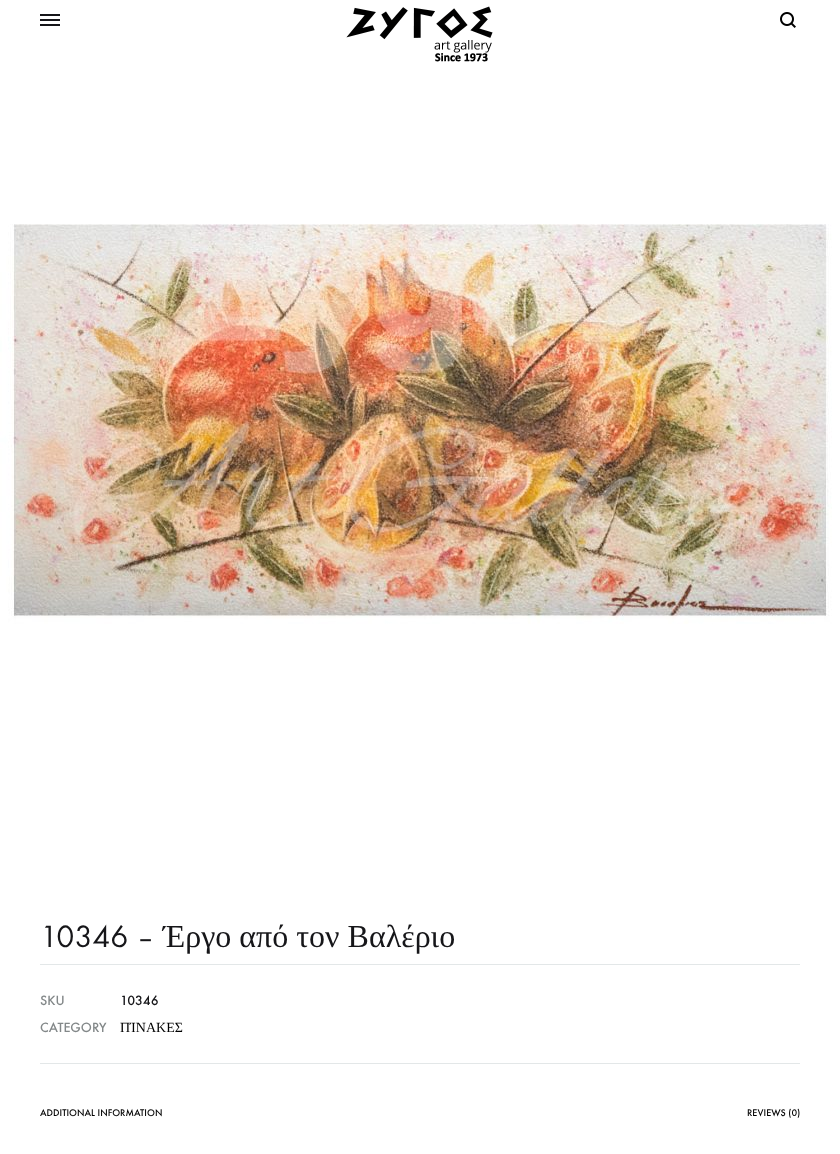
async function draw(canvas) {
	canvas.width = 840;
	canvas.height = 1154;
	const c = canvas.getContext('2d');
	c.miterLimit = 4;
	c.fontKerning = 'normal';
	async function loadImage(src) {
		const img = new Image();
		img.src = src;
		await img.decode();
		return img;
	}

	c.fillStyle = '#fff';
	c.fillRect(0, 0, 840, 1154);
	for (const [x, y, w, h, color] of [
		[40, 19, 20, 2, '#161619'],
		[40, 14, 20, 2, '#161619'],
		[40, 24, 20, 2, '#161619'],
	]) {
		c.fillStyle = color;
		c.fillRect(x, y, w, h);
	}
	c.drawImage(await loadImage('img1.png'), 346, 6, 147, 56);
	c.drawImage(await loadImage('img2.png'), 780, 12, 16, 16);
	c.drawImage(await loadImage('img3.png'), 0, 224, 832, 400);
	c.font = '32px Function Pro';
	c.fillText('10346 –', 40, 947);
	c.font = '32px Liberation Serif';
	c.fillText('Έργο από τον Βαλέριο', 163, 947);
	c.fillStyle = '#e3e7e8';
	c.fillRect(40, 964, 760, 1);
	c.font = '500 14px Function Pro';
	c.fillStyle = '#838889';
	c.fillText('SKU', 40, 1005);
	c.fillStyle = '#161619';
	c.fillText('10346', 120, 1005);
	c.fillStyle = '#838889';
	c.fillText('CATEGORY', 40, 1032);
	c.font = '14px Liberation Serif';
	c.fillStyle = '#000';
	c.fillText('ΠΊΝΑΚΕΣ', 120, 1032);
	c.fillStyle = '#e3e7e8';
	c.fillRect(40, 1063, 760, 1);
	c.font = '500 10px Function Pro';
	c.fillStyle = '#000';
	c.fillText('ADDITIONAL INFORMATION', 40, 1116);
	c.fillText('REVIEWS (0)', 747, 1116);
}

draw(document.querySelector('canvas'));
